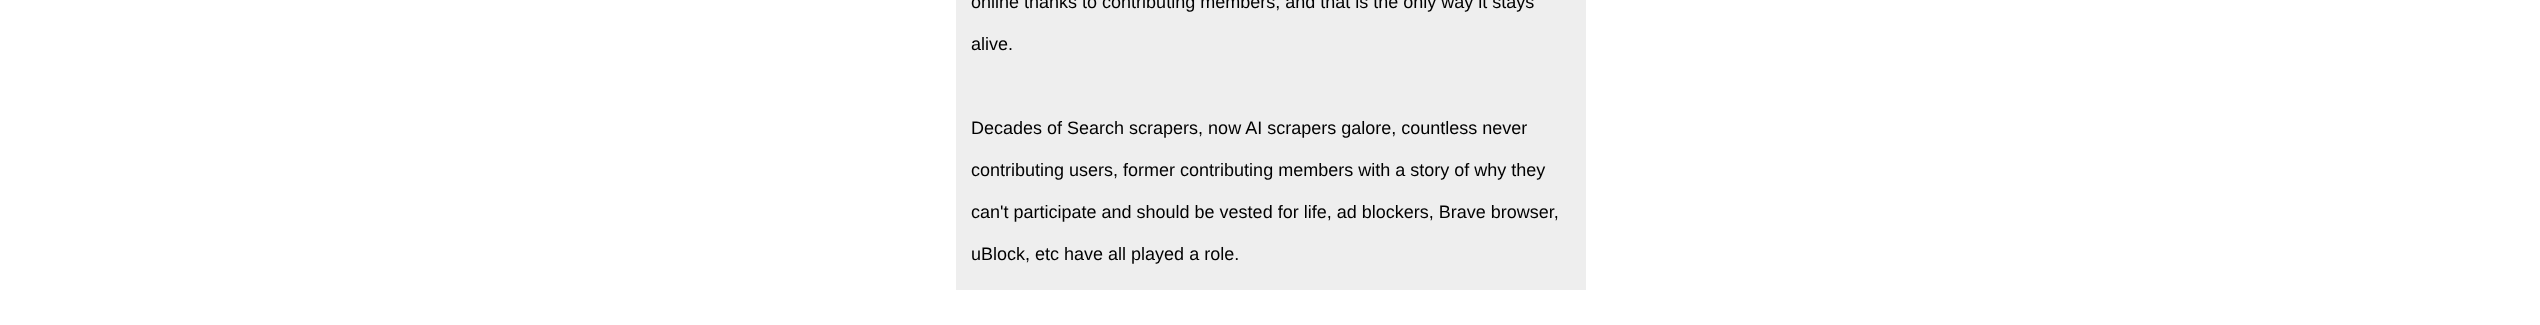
async function draw(canvas) {
	canvas.width = 2540;
	canvas.height = 325;
	const c = canvas.getContext('2d');
	c.miterLimit = 4;
	c.fontKerning = 'normal';

	c.fillStyle = '#fff';
	c.fillRect(0, 0, 2540, 325);
	c.fillStyle = '#eee';
	c.fillRect(956, 0, 630, 290);
	c.font = '18px Liberation Sans';
	c.fillStyle = '#000';
	for (const [text, x, y] of [
		['online thanks to contributing members, and that is the only way it stays', 971, 8],
		['alive.', 971, 50],
		['Decades of Search scrapers, now AI scrapers galore, countless never', 971, 134],
		['contributing users, former contributing members with a story of why they', 971, 176],
		['can\'t participate and should be vested for life, ad blockers, Brave browser,', 971, 218],
		['uBlock, etc have all played a role.', 971, 260],
	]) {
		c.fillText(text, x, y);
	}
}

draw(document.querySelector('canvas'));
